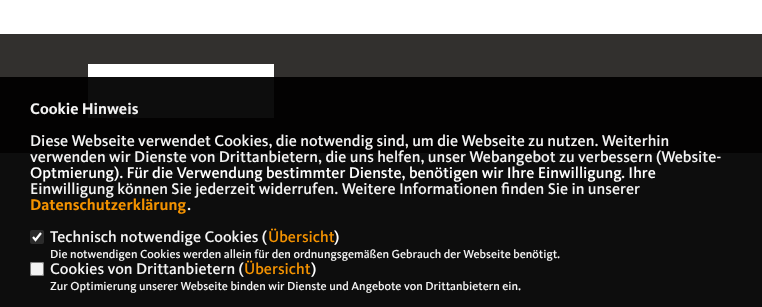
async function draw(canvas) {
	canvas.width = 762;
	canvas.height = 307;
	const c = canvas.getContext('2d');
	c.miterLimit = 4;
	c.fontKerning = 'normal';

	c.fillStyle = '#fff';
	c.fillRect(0, 0, 762, 307);
	for (const [x, y, w, h, color] of [
		[0, 153, 762, 154, '#0d0d0d'],
		[0, 34, 762, 43, '#32302e'],
		[0, 77, 762, 76, '#030202'],
		[88, 64, 186, 13, '#fff'],
		[88, 77, 186, 41, '#0d0d0d'],
	]) {
		c.fillStyle = color;
		c.fillRect(x, y, w, h);
	}
	c.font = 'bold 16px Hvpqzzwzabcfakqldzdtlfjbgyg';
	c.fillStyle = '#f3f3f3';
	c.fillText('Cookie Hinweis', 30, 114);
	c.font = '500 16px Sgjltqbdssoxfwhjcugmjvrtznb';
	c.fillText('Diese Webseite verwendet Cookies, die notwendig sind, um die Webseite zu nutzen. Weiterhin', 30, 146);
	c.fillText('verwenden wir Dienste von Drittanbietern, die uns helfen, unser Webangebot zu verbessern (Website-', 30, 162);
	c.fillStyle = '#fff';
	c.fillText('Optmierung). Für die Verwendung bestimmter Dienste, benötigen wir Ihre Einwilligung. Ihre', 30, 178);
	c.fillStyle = '#f3f3f3';
	c.fillText('Einwilligung können Sie jederzeit widerrufen. Weitere Informationen finden Sie in unserer', 30, 194);
	c.font = 'bold 16px Hvpqzzwzabcfakqldzdtlfjbgyg';
	c.fillStyle = '#f39201';
	c.fillText('Datenschutzerklärung', 30, 210);
	c.font = '500 16px Sgjltqbdssoxfwhjcugmjvrtznb';
	c.fillStyle = '#fff';
	c.fillText('.', 187, 210);
	c.fillStyle = '#2b2b2b';
	c.beginPath();
	c.roundRect(30, 230, 14, 14, 2);
	c.fill();
	c.beginPath();
	c.moveTo(33, 237);
	c.lineTo(35.5, 240);
	c.lineTo(41, 233);
	c.strokeStyle = '#fff';
	c.lineWidth = 2.2;
	c.stroke();
	c.fillStyle = '#f3f3f3';
	c.fillText('Technisch notwendige Cookies (', 50, 242);
	c.fillStyle = '#f39201';
	c.fillText('Übersicht', 268, 242);
	c.fillStyle = '#fff';
	c.fillText(')', 334, 242);
	c.font = '500 12px Sgjltqbdssoxfwhjcugmjvrtznb';
	c.fillStyle = '#f3f3f3';
	c.fillText('Die notwendigen Cookies werden allein für den ordnungsgemäßen Gebrauch der Webseite benötigt.', 50, 258);
	c.fillStyle = '#fffffff2';
	c.beginPath();
	c.roundRect(30, 262, 14, 14, 2);
	c.fill();
	c.beginPath();
	c.roundRect(30.5, 262.5, 13, 13, 1.5);
	c.strokeStyle = '#767676f2';
	c.lineWidth = 1;
	c.stroke();
	c.font = '500 16px Sgjltqbdssoxfwhjcugmjvrtznb';
	c.fillStyle = '#f3f3f3';
	c.fillText('Cookies von Drittanbietern (', 50, 274);
	c.fillStyle = '#f39201';
	c.fillText('Übersicht', 244, 274);
	c.fillStyle = '#fff';
	c.fillText(')', 311, 274);
	c.font = '500 12px Sgjltqbdssoxfwhjcugmjvrtznb';
	c.fillStyle = '#f3f3f3';
	c.fillText('Zur Optimierung unserer Webseite binden wir Dienste und Angebote von Drittanbietern ein.', 50, 290);
}

draw(document.querySelector('canvas'));
